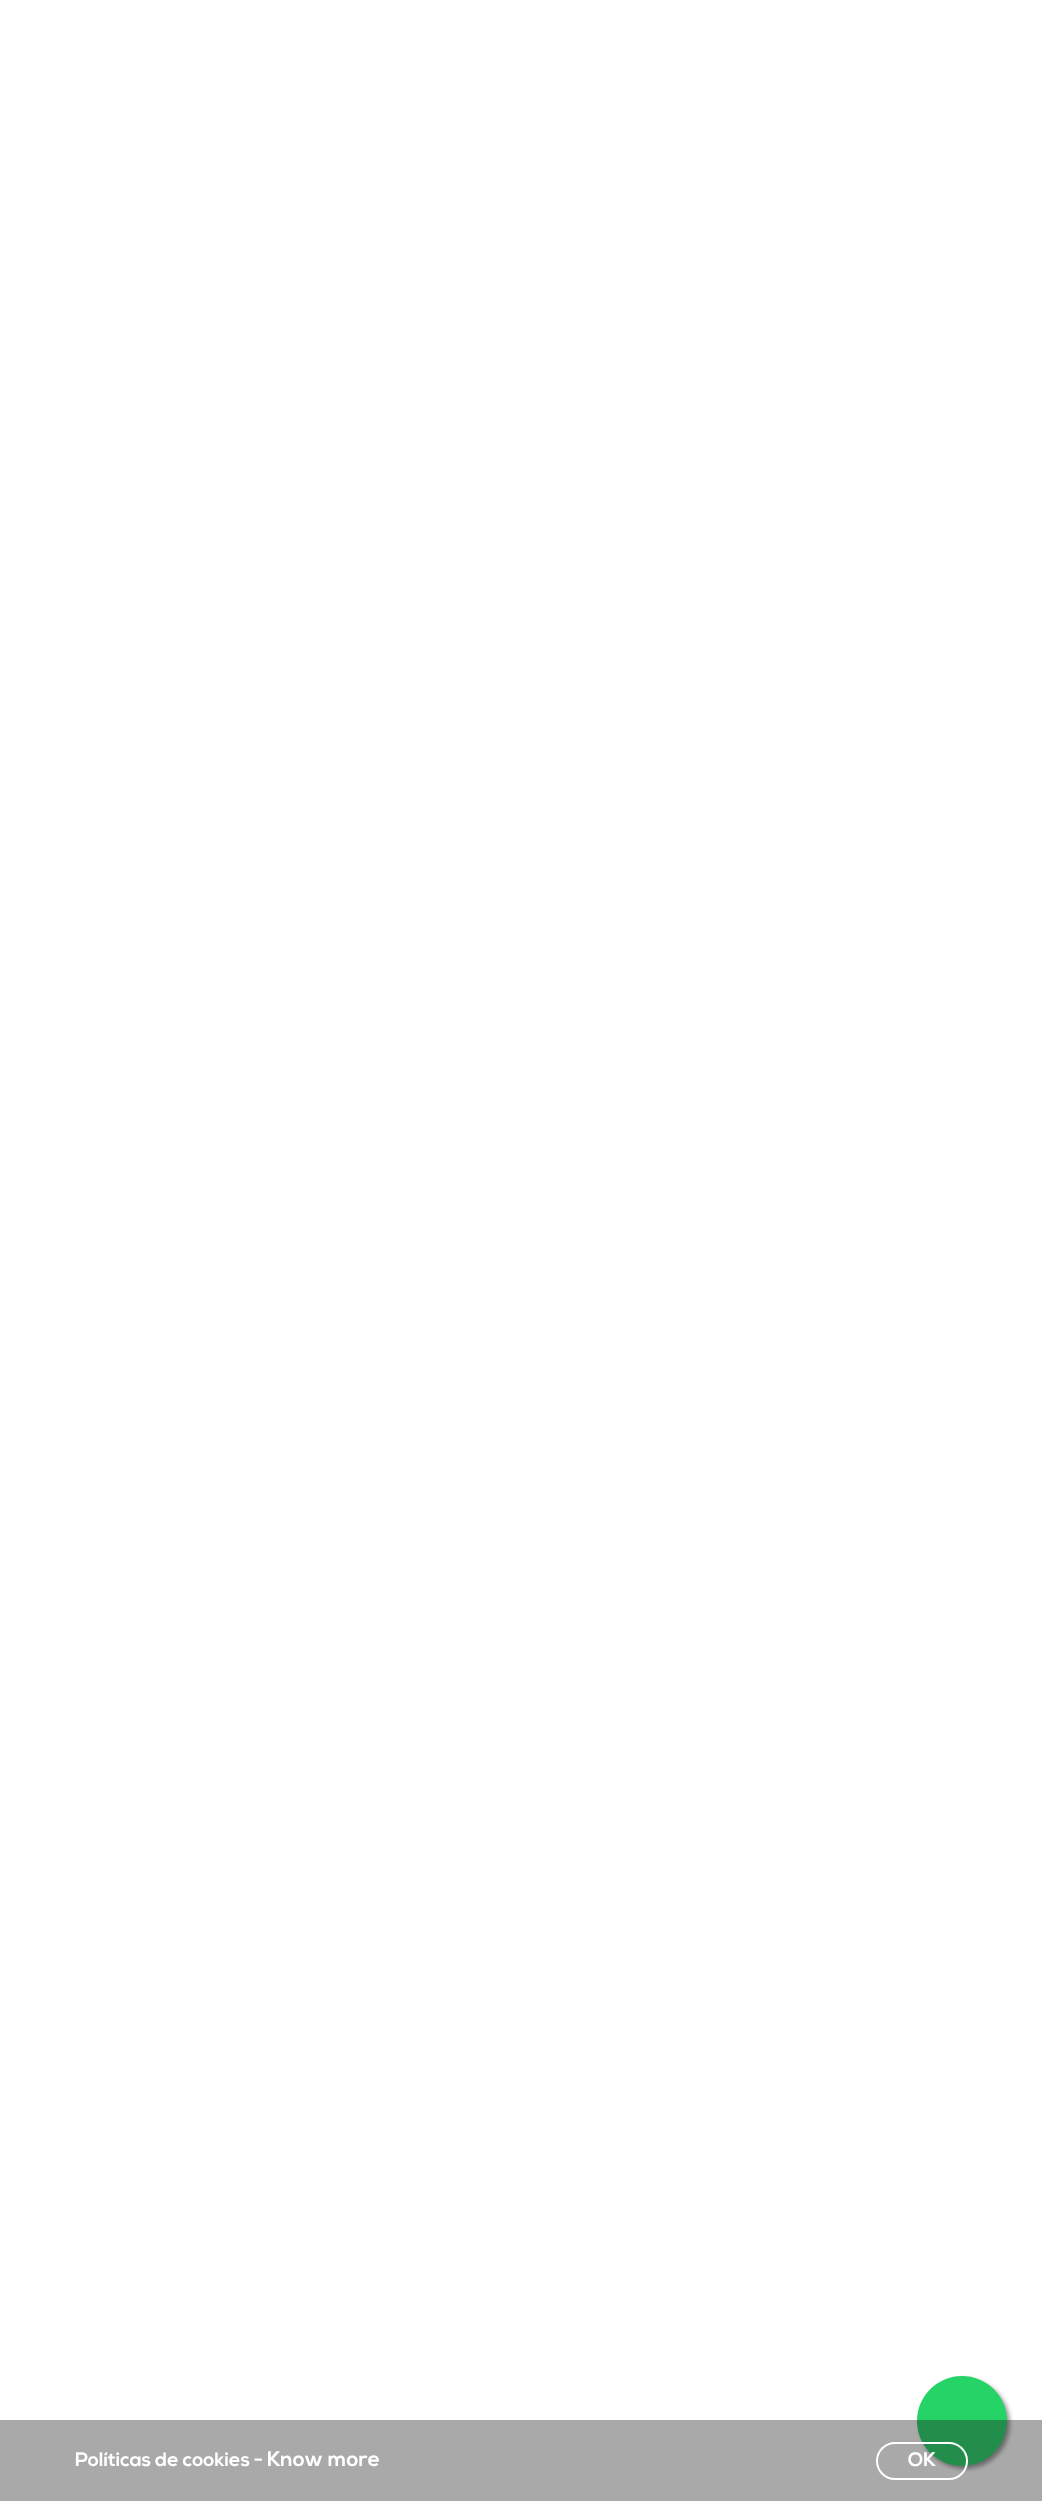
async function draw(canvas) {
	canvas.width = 1042;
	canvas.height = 2501;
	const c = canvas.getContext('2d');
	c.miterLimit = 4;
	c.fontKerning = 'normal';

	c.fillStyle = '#fff';
	c.fillRect(0, 0, 1042, 2501);
	c.fillStyle = '#999';
	c.filter = 'blur(2px)';
	c.beginPath();
	c.roundRect(920, 2379, 90, 90, 45);
	c.fill();
	c.filter = 'none';
	c.fillStyle = '#25d366';
	c.beginPath();
	c.arc(962, 2421, 45, 0, 2 * Math.PI);
	c.fill();
	c.fillStyle = '#22222263';
	c.fillRect(0, 2420, 1042, 81);
	c.font = 'bold 19.5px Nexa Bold';
	c.fillStyle = '#fff';
	c.fillText('Políticas de cookies -', 75, 2466);
	c.font = 'bold 21px Nexa Bold';
	c.fillText('Know more', 267, 2466);
	c.beginPath();
	c.roundRect(877, 2443, 90, 36, 18);
	c.strokeStyle = '#fff';
	c.lineWidth = 2;
	c.stroke();
	c.font = 'bold 19.5px Nexa Bold';
	c.fillText('OK', 908, 2466);
}

draw(document.querySelector('canvas'));
